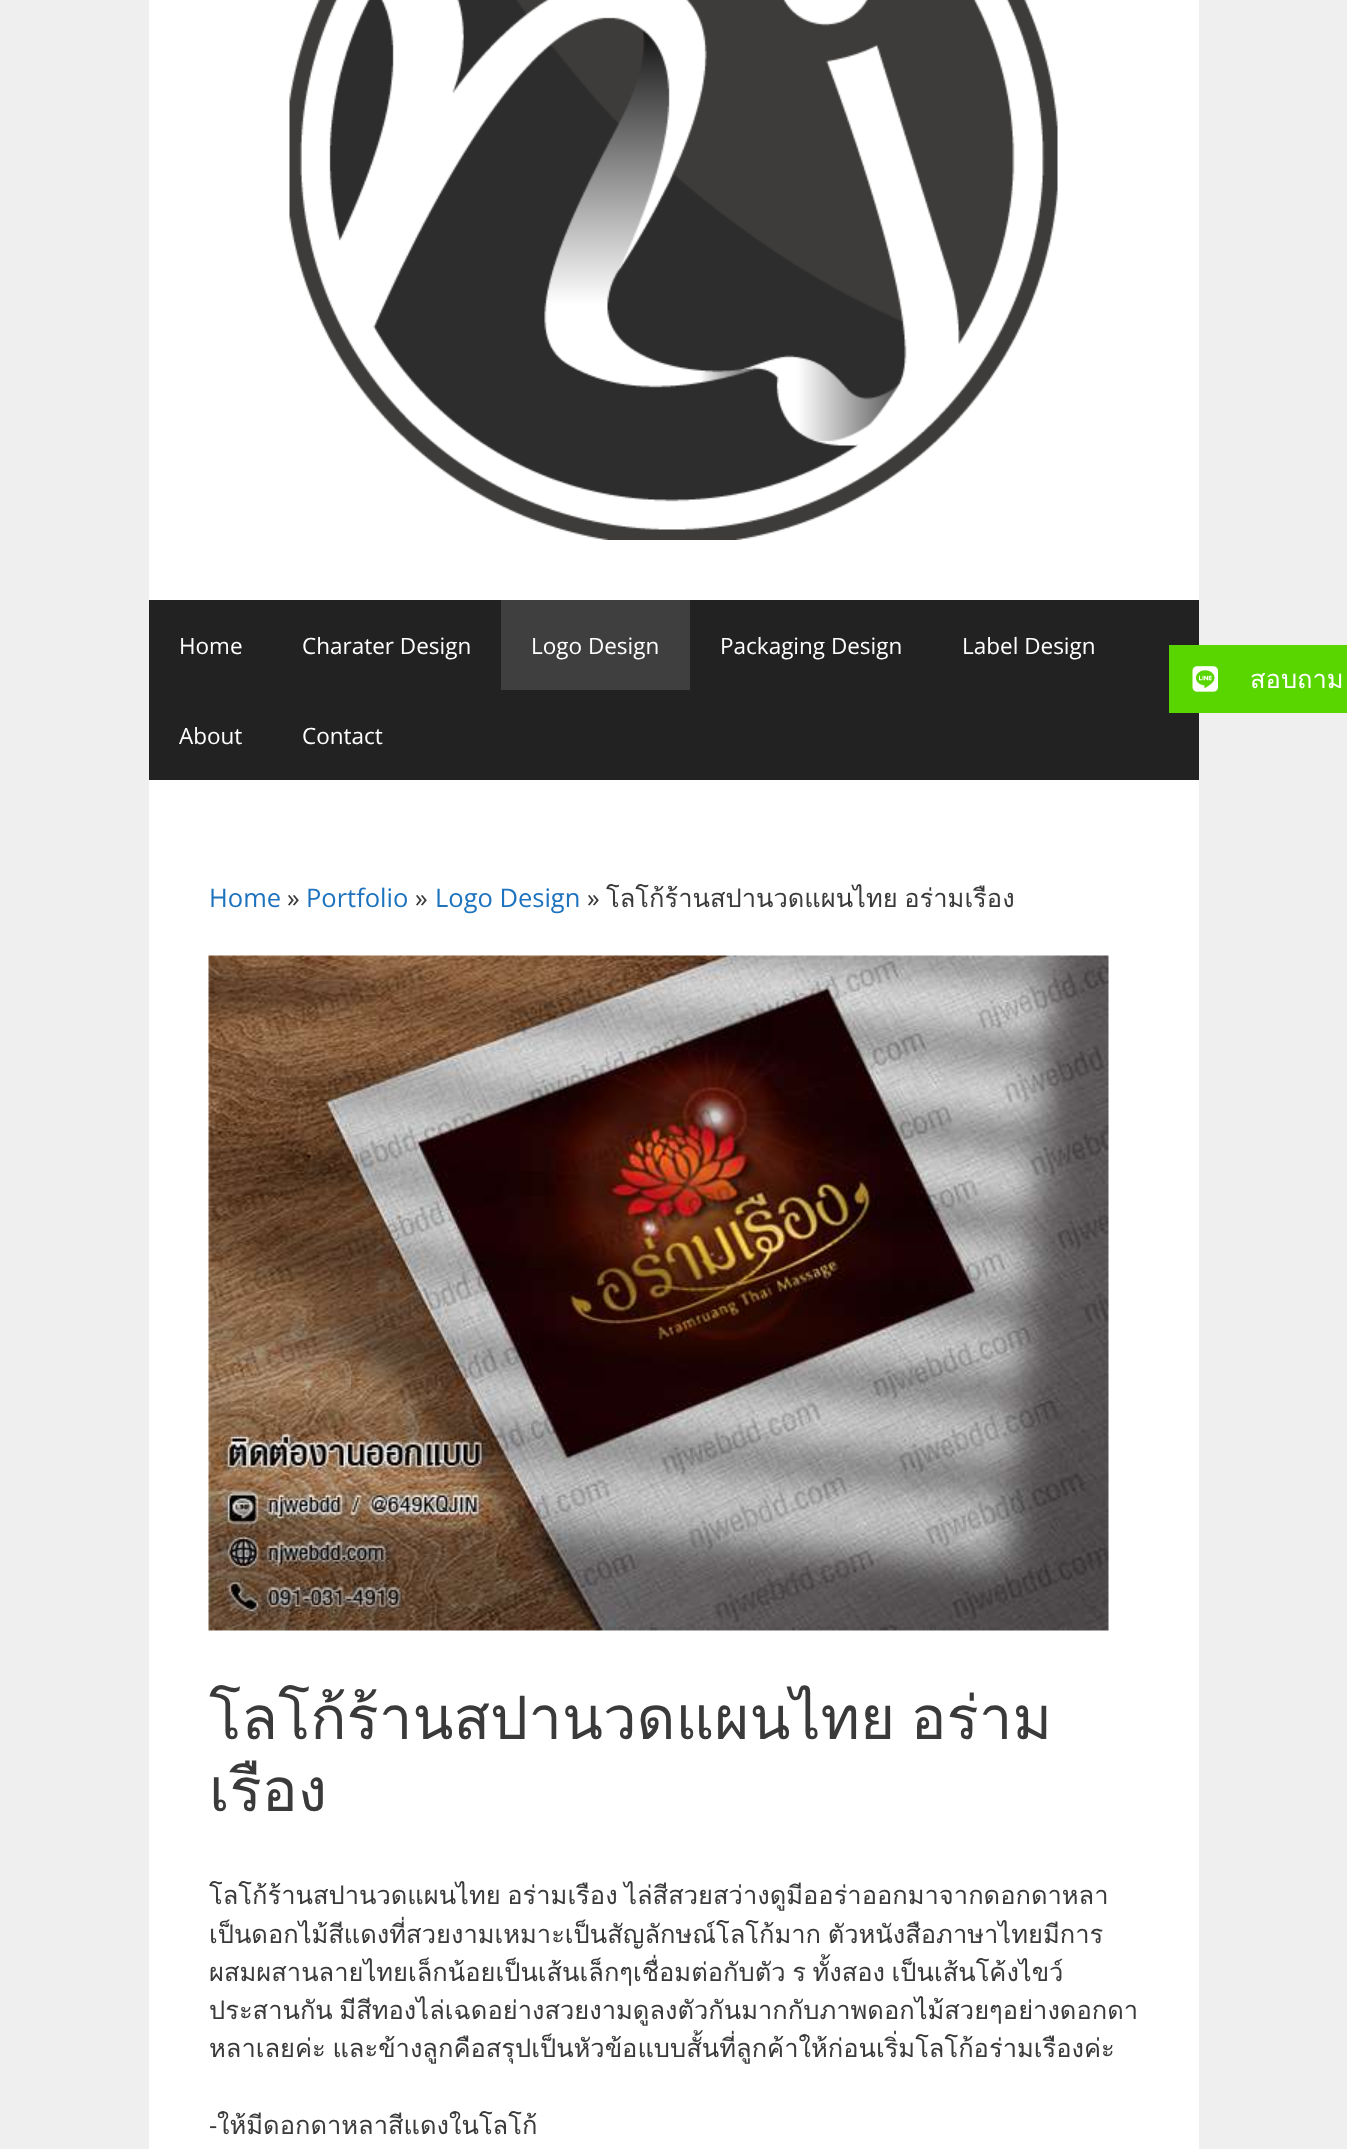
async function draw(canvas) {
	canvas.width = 1347;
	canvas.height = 2149;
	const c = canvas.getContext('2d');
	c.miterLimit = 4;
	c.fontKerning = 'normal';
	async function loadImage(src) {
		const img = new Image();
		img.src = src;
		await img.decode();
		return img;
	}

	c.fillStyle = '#efefef';
	c.fillRect(0, 0, 1347, 2149);
	c.fillStyle = '#fff';
	c.fillRect(149, 0, 1050, 600);
	c.drawImage(await loadImage('img1.png'), 289, 0, 769, 540);
	c.fillStyle = '#222';
	c.fillRect(149, 600, 1050, 180);
	c.font = '22.5px Open Sans';
	c.fillStyle = '#fff';
	c.fillText('Home', 179, 654);
	c.fillText('Charater Design', 302, 654);
	c.fillStyle = '#3f3f3f';
	c.fillRect(501, 600, 189, 90);
	c.fillStyle = '#fff';
	for (const [text, x, y] of [
		['Logo Design', 531, 654],
		['Packaging Design', 720, 654],
		['Label Design', 962, 654],
		['About', 179, 744],
		['Contact', 302, 744],
	]) {
		c.fillText(text, x, y);
	}
	c.fillStyle = '#59d600';
	c.fillRect(1169, 645, 178, 68);
	c.drawImage(await loadImage('img2.png'), 1192, 666, 26, 26);
	c.font = '25.5px Loma';
	c.fillStyle = '#fff';
	c.fillText('สอบถาม', 1250, 688);
	c.fillRect(149, 780, 1050, 1369);
	c.font = '25.5px Open Sans';
	c.fillStyle = '#1e73be';
	c.fillText('Home', 209, 907);
	c.fillStyle = '#3a3a3a';
	c.fillText('»', 287, 907);
	c.fillStyle = '#1e73be';
	c.fillText('Portfolio', 306, 907);
	c.fillStyle = '#3a3a3a';
	c.fillText('»', 415, 907);
	c.fillStyle = '#1e73be';
	c.fillText('Logo Design', 435, 907);
	c.fillStyle = '#3a3a3a';
	c.fillText('»', 587, 907);
	c.wordSpacing = '-2px';
	c.font = '25.5px Loma';
	c.fillText('โลโก้ร้านสปานวดแผนไทย อร่ามเรือง', 606, 907);
	c.drawImage(await loadImage('img3.png'), 208, 955, 901, 676);
	c.wordSpacing = '-5px';
	c.font = '60px Loma';
	c.fillText('โลโก้ร้านสปานวดแผนไทย อร่าม', 209, 1739);
	c.wordSpacing = '0px';
	c.fillText('เรือง', 209, 1811);
	c.wordSpacing = '-2px';
	c.font = '25.5px Loma';
	for (const [text, x, y] of [
		['โลโก้ร้านสปานวดแผนไทย อร่ามเรือง ไล่สีสวยสว่างดูมีออร่าออกมาจากดอกดาหลา', 209, 1904],
		['เป็นดอกไม้สีแดงที่สวยงามเหมาะเป็นสัญลักษณ์โลโก้มาก ตัวหนังสือภาษาไทยมีการ', 209, 1943],
		['ผสมผสานลายไทยเล็กน้อยเป็นเส้นเล็กๆเชื่อมต่อกับตัว ร ทั้งสอง เป็นเส้นโค้งไขว์', 209, 1981],
		['ประสานกัน มีสีทองไล่เฉดอย่างสวยงามดูลงตัวกันมากกับภาพดอกไม้สวยๆอย่างดอกดา', 209, 2019],
		['หลาเลยค่ะ และข้างลูกคือสรุปเป็นหัวข้อแบบสั้นที่ลูกค้าให้ก่อนเริ่มโลโก้อร่ามเรืองค่ะ', 209, 2057],
	]) {
		c.fillText(text, x, y);
	}
	c.wordSpacing = '0px';
	c.font = '25.5px Open Sans';
	c.fillText('-', 209, 2134);
	c.font = '25.5px Loma';
	c.fillText('ให้มีดอกดาหลาสีแดงในโลโก้', 217, 2134);
}

draw(document.querySelector('canvas'));
